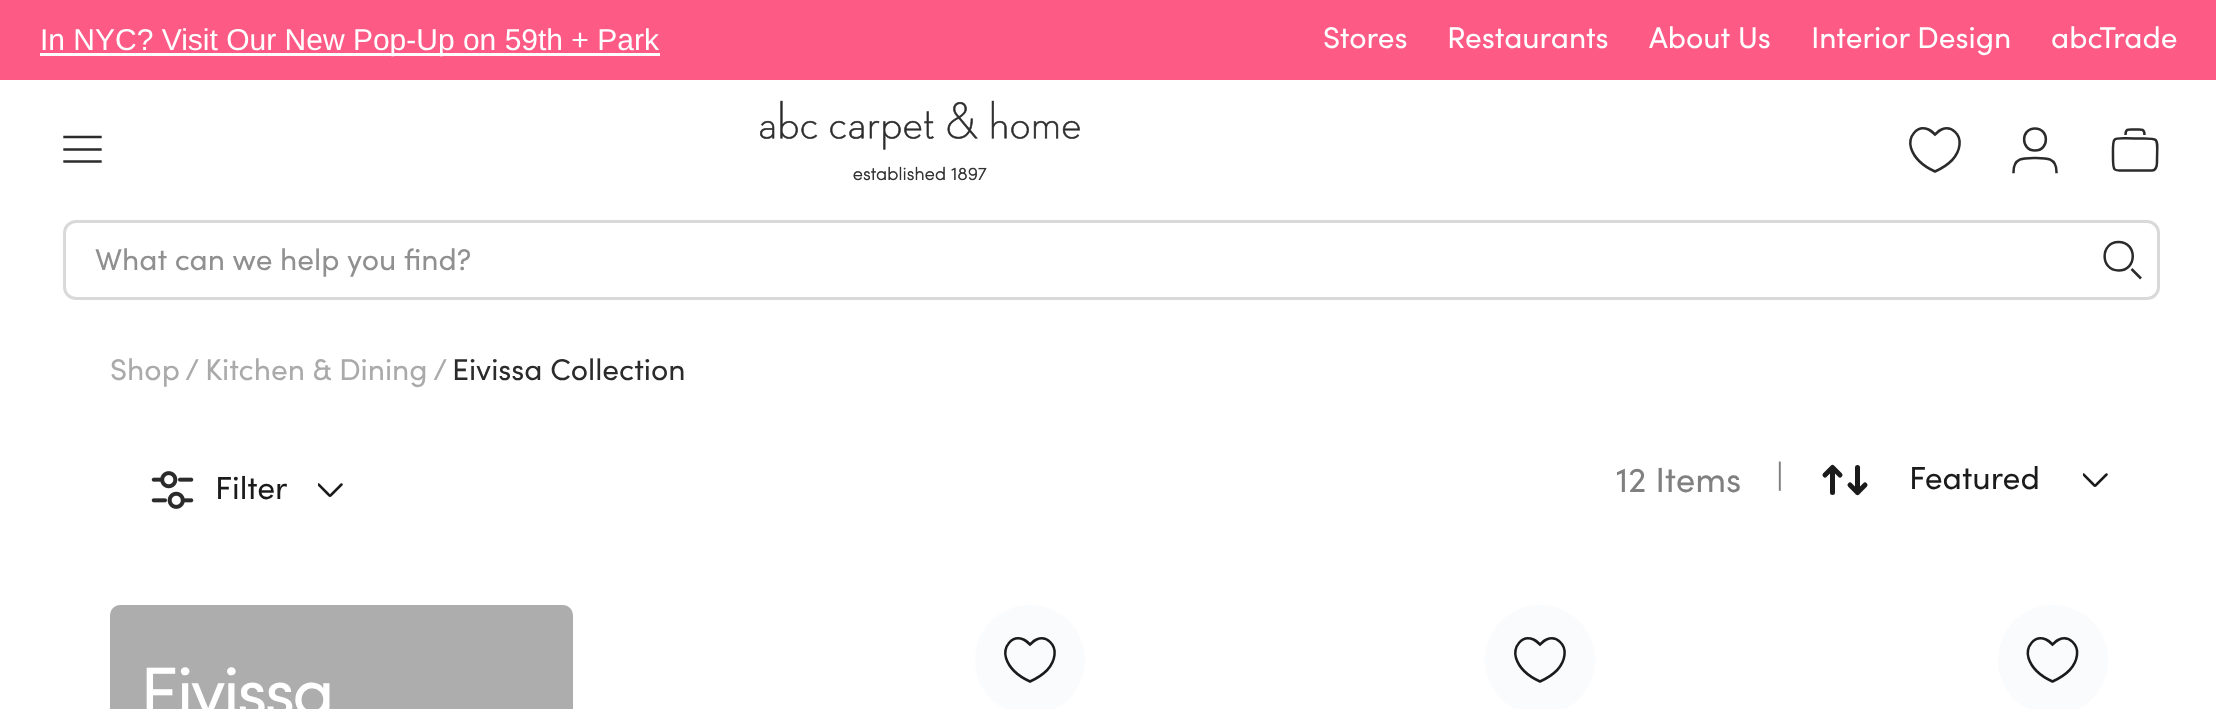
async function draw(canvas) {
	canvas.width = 2216;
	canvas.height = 709;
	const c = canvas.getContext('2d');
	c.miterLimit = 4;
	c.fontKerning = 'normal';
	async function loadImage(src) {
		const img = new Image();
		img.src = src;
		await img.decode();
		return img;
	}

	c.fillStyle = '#fff';
	c.fillRect(0, 0, 2216, 709);
	c.fillStyle = '#fe5a86';
	c.fillRect(0, 0, 2216, 80);
	c.fillStyle = '#fff';
	c.fillRect(40, 53, 620, 3);
	c.font = '30px Liberation Sans';
	c.fillText('In NYC? Visit Our New Pop-Up on 59th + Park', 40, 50);
	c.font = '30px Sofia';
	for (const [text, x, y] of [
		['Stores', 1323, 48],
		['Restaurants', 1447, 48],
		['About Us', 1649, 48],
		['Interior Design', 1811, 48],
		['abcTrade', 2051, 48],
	]) {
		c.fillText(text, x, y);
	}
	c.drawImage(await loadImage('img1.png'), 760, 100, 320, 81);
	c.beginPath();
	c.moveTo(1935, 171.5);
	c.bezierCurveTo(1925, 167, 1914.5, 159, 1911, 148);
	c.bezierCurveTo(1908, 137, 1916.5, 124.5, 1928.5, 129.5);
	c.bezierCurveTo(1931, 130.5, 1933, 132.5, 1935, 134.5);
	c.bezierCurveTo(1937, 132.5, 1939, 130.5, 1941.5, 129.5);
	c.bezierCurveTo(1952, 125, 1961, 135, 1959.5, 145);
	c.bezierCurveTo(1958, 157.5, 1946, 166.5, 1935, 171.5);
	c.closePath();
	c.strokeStyle = '#2b2b2b';
	c.lineWidth = 2.5;
	c.stroke();
	c.beginPath();
	c.moveTo(2035, 150.5);
	c.bezierCurveTo(2049.5, 150.5, 2049.5, 128.5, 2035, 128.5);
	c.bezierCurveTo(2020.5, 128.5, 2020.5, 150.5, 2035, 150.5);
	c.closePath();
	c.stroke();
	c.beginPath();
	c.moveTo(2013.5, 172);
	c.bezierCurveTo(2013.5, 157.5, 2024, 158, 2035, 158);
	c.bezierCurveTo(2046, 158, 2056.5, 157.5, 2056.5, 172);
	c.lineCap = 'square';
	c.stroke();
	c.beginPath();
	c.moveTo(2144.5, 135);
	c.bezierCurveTo(2144.5, 128, 2140.5, 129.5, 2135, 129.5);
	c.bezierCurveTo(2129, 129.5, 2125.5, 128, 2125.5, 135);
	c.moveTo(2152, 170.5);
	c.lineTo(2129.5, 170.5);
	c.bezierCurveTo(2114, 170.5, 2113, 173, 2113, 158);
	c.bezierCurveTo(2113, 134.5, 2110.5, 138.5, 2135, 138.5);
	c.bezierCurveTo(2161.5, 138.5, 2157, 135.5, 2157, 162);
	c.bezierCurveTo(2157, 165.5, 2157, 170.5, 2152, 170.5);
	c.closePath();
	c.lineCap = 'butt';
	c.stroke();
	c.beginPath();
	c.moveTo(64.5, 149.5);
	c.lineTo(100.5, 149.5);
	c.moveTo(64.5, 137);
	c.lineTo(100.5, 137);
	c.moveTo(64.5, 161.5);
	c.lineTo(100.5, 161.5);
	c.lineWidth = 2.4;
	c.lineCap = 'square';
	c.lineJoin = 'round';
	c.stroke();
	c.beginPath();
	c.roundRect(64.5, 221.5, 2094, 77, 11.5);
	c.strokeStyle = '#d9d9d9';
	c.lineWidth = 3;
	c.lineJoin = 'miter';
	c.stroke();
	c.fillStyle = '#909090';
	c.fillText('What can we help you find?', 95, 270);
	c.beginPath();
	c.moveTo(2118.5, 270.5);
	c.bezierCurveTo(2137.5, 270.5, 2137.5, 242, 2118.5, 242);
	c.bezierCurveTo(2100, 242, 2100, 270.5, 2118.5, 270.5);
	c.closePath();
	c.moveTo(2131.5, 269);
	c.lineTo(2141, 278.5);
	c.strokeStyle = '#2b2b2b';
	c.lineWidth = 2.5;
	c.lineCap = 'butt';
	c.stroke();
	c.fillStyle = '#aaa';
	for (const [text, x, y] of [
		['Shop', 110, 380],
		['/', 185, 380],
		['Kitchen & Dining', 205, 380],
		['/', 433, 380],
	]) {
		c.fillText(text, x, y);
	}
	c.fillStyle = '#2b2b2b';
	c.fillText('Eivissa Collection', 452, 380);
	c.drawImage(await loadImage('img2.png'), 151, 471, 43, 38);
	c.font = '32px Sofia';
	c.fillStyle = '#1b1b1b';
	c.fillText('Filter', 215, 499);
	c.save();
	c.beginPath();
	c.rect(318, 478, 25, 25);
	c.clip();
	c.beginPath();
	c.moveTo(318.5, 484.5);
	c.lineTo(327.5, 493.5);
	c.bezierCurveTo(330.5, 496.5, 329.5, 496.5, 332.5, 493.5);
	c.lineTo(341.5, 484.5);
	c.strokeStyle = '#1b1b1b';
	c.lineCap = 'round';
	c.lineJoin = 'round';
	c.stroke();
	c.restore();
	c.font = '35px Sofia';
	c.fillStyle = '#808080';
	c.fillText('12 Items', 1616, 492);
	c.font = '32px Sofia';
	c.fillText('|', 1776, 487);
	c.beginPath();
	c.moveTo(1832.5, 492.5);
	c.lineTo(1832.5, 467.5);
	c.moveTo(1825, 475);
	c.lineTo(1832.5, 467.5);
	c.lineTo(1840, 475);
	c.moveTo(1857.5, 467.5);
	c.lineTo(1857.5, 492.5);
	c.moveTo(1850, 485);
	c.lineTo(1857.5, 492.5);
	c.lineTo(1865, 485);
	c.strokeStyle = '#1b1b1b';
	c.lineWidth = 5;
	c.lineCap = 'round';
	c.lineJoin = 'round';
	c.stroke();
	c.fillStyle = '#1b1b1b';
	c.fillText('Featured', 1909, 489);
	c.save();
	c.beginPath();
	c.rect(2083, 468, 25, 25);
	c.clip();
	c.beginPath();
	c.moveTo(2083.5, 474.5);
	c.lineTo(2092.5, 483.5);
	c.bezierCurveTo(2095.5, 486.5, 2094.5, 486.5, 2097.5, 483.5);
	c.lineTo(2106.5, 474.5);
	c.lineWidth = 2.5;
	c.stroke();
	c.restore();
	c.fillStyle = '#dedede';
	c.beginPath();
	c.roundRect(110, 605, 463, 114, 10);
	c.fill();
	c.fillStyle = '#1b1b1b40';
	c.beginPath();
	c.roundRect(110, 605, 463, 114, 10);
	c.fill();
	c.letterSpacing = '-2.75px';
	c.font = '70px Sofia';
	c.fillStyle = '#fff';
	c.fillText('Eivissa', 140, 716);
	c.fillStyle = '#fafbfd';
	c.beginPath();
	c.arc(1030, 660, 55, 0, 2 * Math.PI);
	c.fill();
	c.beginPath();
	c.moveTo(1030, 681.5);
	c.bezierCurveTo(1020, 677, 1009.5, 669, 1006, 658);
	c.bezierCurveTo(1003, 647, 1011.5, 634.5, 1023.5, 639.5);
	c.bezierCurveTo(1026, 640.5, 1028, 642.5, 1030, 644.5);
	c.bezierCurveTo(1032, 642.5, 1034, 640.5, 1036.5, 639.5);
	c.bezierCurveTo(1047, 635, 1056, 645, 1054.5, 655);
	c.bezierCurveTo(1053, 667.5, 1041, 676.5, 1030, 681.5);
	c.closePath();
	c.lineWidth = 2.5;
	c.lineCap = 'butt';
	c.lineJoin = 'miter';
	c.stroke();
	c.beginPath();
	c.arc(1540, 660, 55, 0, 2 * Math.PI);
	c.fill();
	c.beginPath();
	c.moveTo(1540, 681.5);
	c.bezierCurveTo(1530, 677, 1519.5, 669, 1516, 658);
	c.bezierCurveTo(1513, 647, 1521.5, 634.5, 1533.5, 639.5);
	c.bezierCurveTo(1536, 640.5, 1538, 642.5, 1540, 644.5);
	c.bezierCurveTo(1542, 642.5, 1544, 640.5, 1546.5, 639.5);
	c.bezierCurveTo(1557, 635, 1566, 645, 1564.5, 655);
	c.bezierCurveTo(1563, 667.5, 1551, 676.5, 1540, 681.5);
	c.closePath();
	c.stroke();
	c.beginPath();
	c.arc(2053, 660, 55, 0, 2 * Math.PI);
	c.fill();
	c.beginPath();
	c.moveTo(2052.5, 681.5);
	c.bezierCurveTo(2042.5, 677, 2032, 669, 2028.5, 658);
	c.bezierCurveTo(2025.5, 647, 2034, 634.5, 2046, 639.5);
	c.bezierCurveTo(2048.5, 640.5, 2050.5, 642.5, 2052.5, 644.5);
	c.bezierCurveTo(2054.5, 642.5, 2056.5, 640.5, 2059, 639.5);
	c.bezierCurveTo(2069.5, 635, 2078.5, 645, 2077, 655);
	c.bezierCurveTo(2075.5, 667.5, 2063.5, 676.5, 2052.5, 681.5);
	c.closePath();
	c.stroke();
}

draw(document.querySelector('canvas'));
